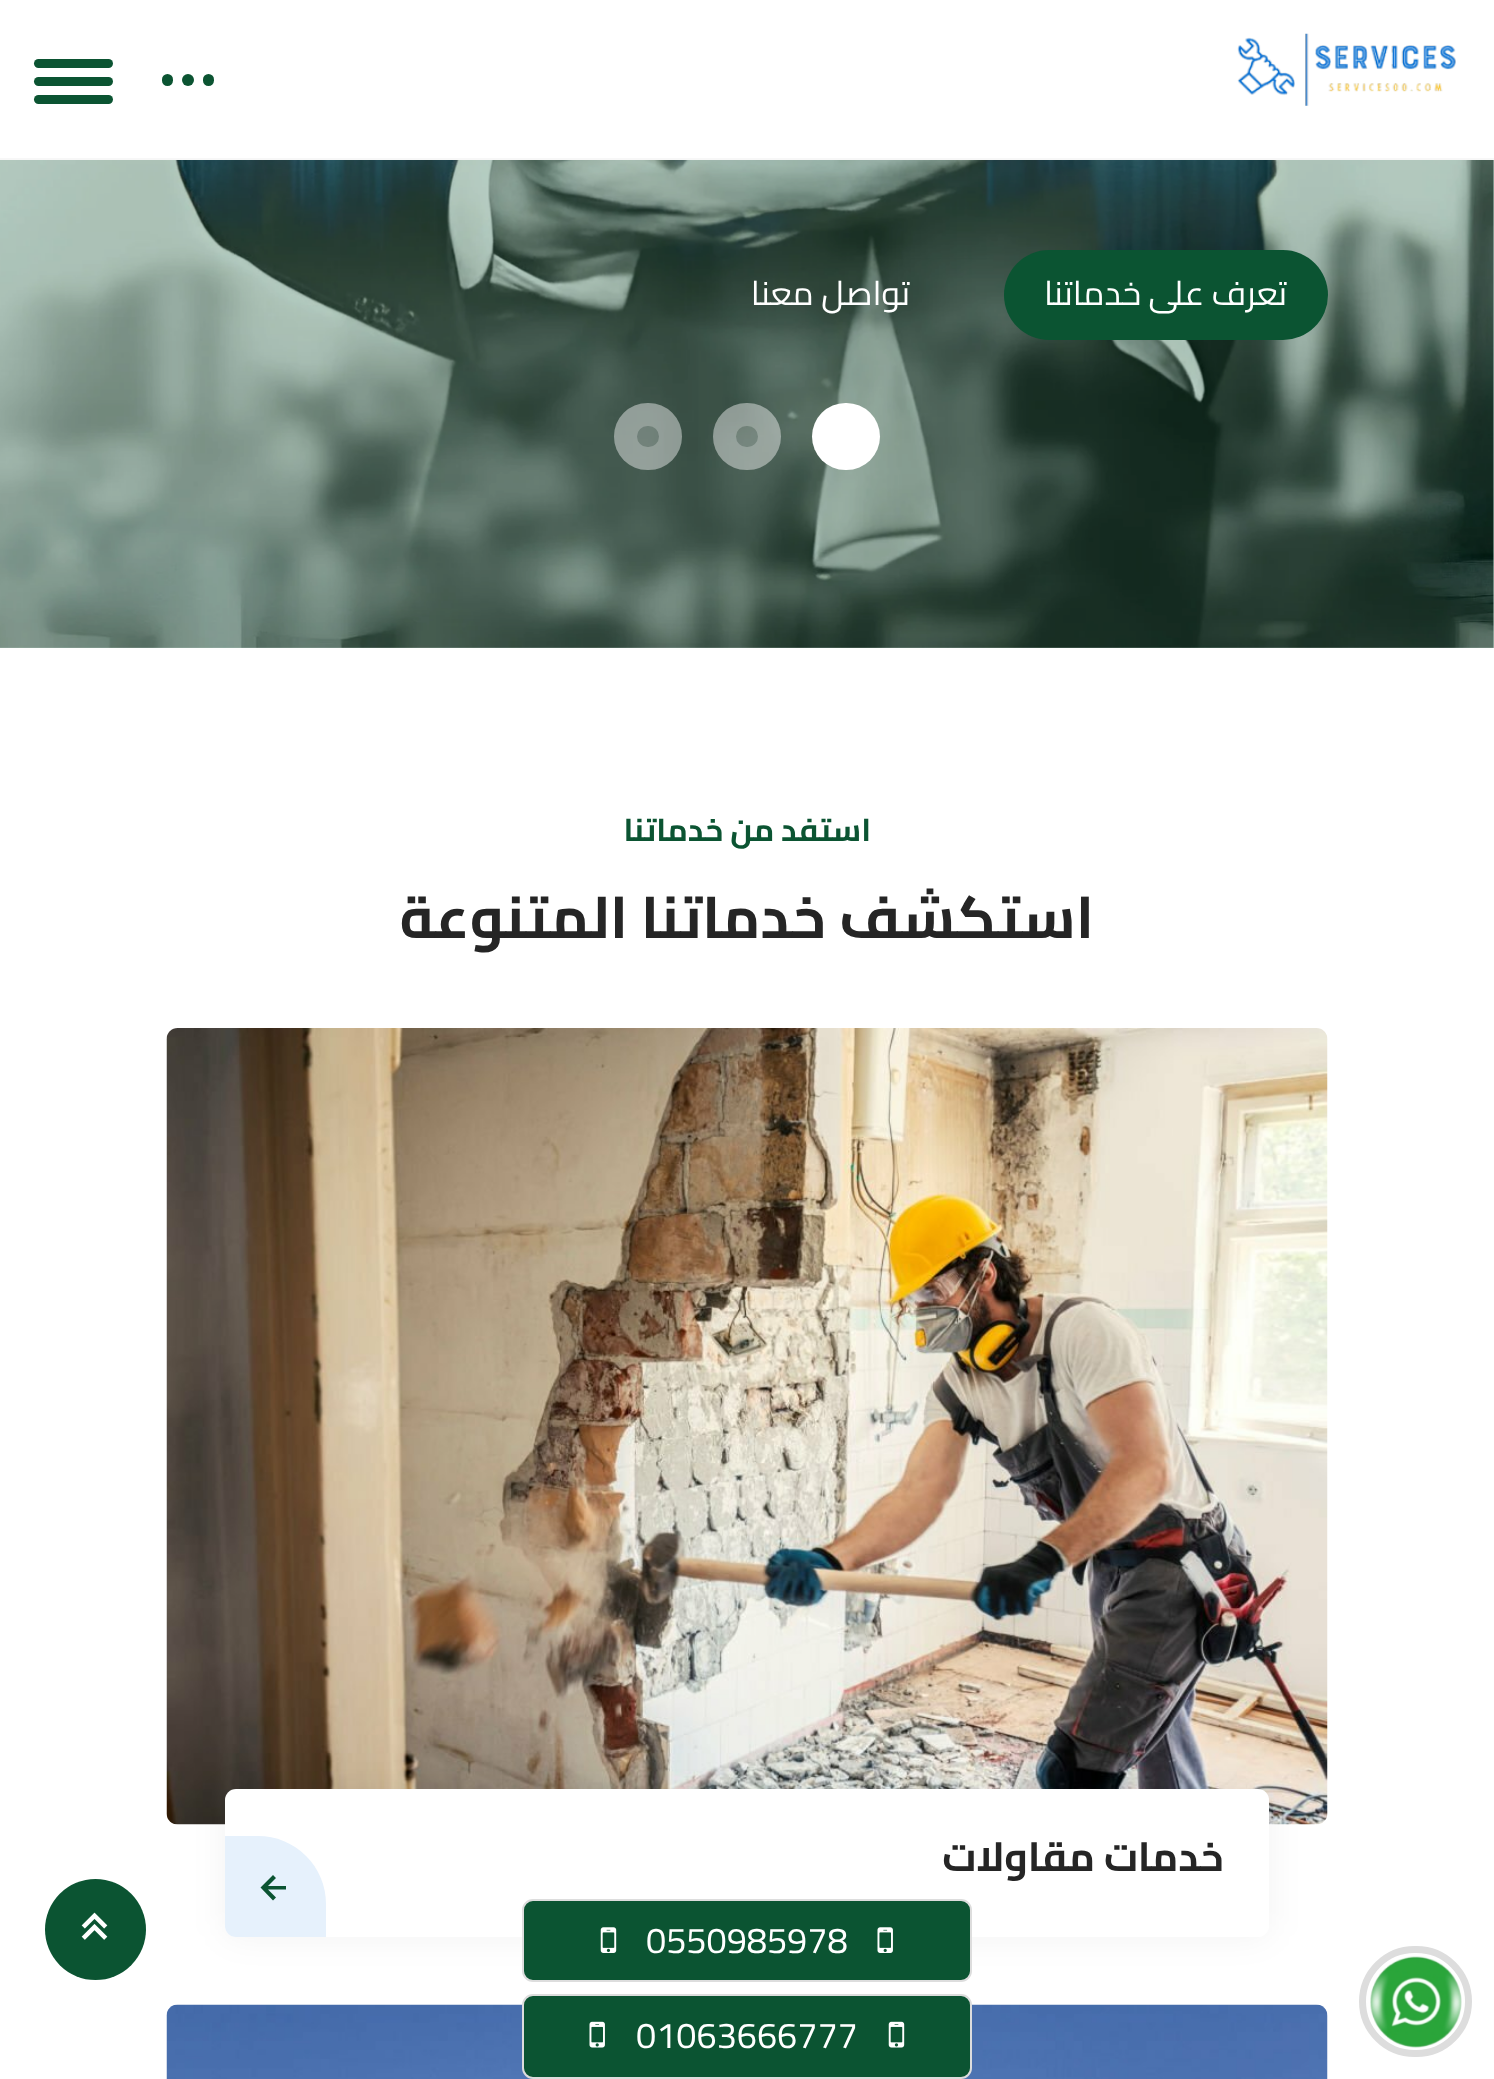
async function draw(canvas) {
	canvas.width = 1494;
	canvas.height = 2079;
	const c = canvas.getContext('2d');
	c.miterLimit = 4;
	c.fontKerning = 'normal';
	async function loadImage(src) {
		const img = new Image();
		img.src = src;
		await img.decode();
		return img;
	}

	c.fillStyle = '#fff';
	c.fillRect(0, 0, 1494, 2079);
	c.fillStyle = '#b6ccc2';
	c.fillRect(0, 160, 1494, 488);
	c.drawImage(await loadImage('img1.png'), 1237, 33, 219, 73);
	c.fillStyle = '#f7f7f7';
	c.fillRect(0, 158, 1494, 2);
	c.fillStyle = '#0b5432';
	c.beginPath();
	c.roundRect(34, 59, 79, 9, 4.5);
	c.fill();
	c.beginPath();
	c.roundRect(34, 77, 79, 9, 4.5);
	c.fill();
	c.beginPath();
	c.roundRect(34, 95, 79, 9, 4.5);
	c.fill();
	c.beginPath();
	c.roundRect(203, 74, 11, 12, 5.5);
	c.fill();
	c.beginPath();
	c.arc(188, 80, 6, 0, 2 * Math.PI);
	c.fill();
	c.beginPath();
	c.roundRect(162, 74, 11, 12, 5.5);
	c.fill();
	c.drawImage(await loadImage('img2.png'), 0, 160, 1494, 488);
	c.beginPath();
	c.roundRect(1004, 250, 324, 90, 45);
	c.fill();
	c.direction = 'rtl';
	c.font = '33.75px Cairo';
	c.fillStyle = '#fff';
	c.fillText('تعرف على خدماتنا', 1287, 305);
	c.fillText('تواصل معنا', 910, 305);
	c.beginPath();
	c.roundRect(812, 403, 68, 67, 33.5);
	c.fill();
	c.fillStyle = '#fbfbfb40';
	c.beginPath();
	c.roundRect(713, 403, 68, 67, 33.5);
	c.fill();
	c.beginPath();
	c.roundRect(724.5, 414.5, 45, 44, 22);
	c.strokeStyle = '#fbfbfb40';
	c.lineWidth = 23;
	c.stroke();
	c.beginPath();
	c.roundRect(614, 403, 68, 67, 33.5);
	c.fill();
	c.beginPath();
	c.roundRect(625.5, 414.5, 45, 44, 22);
	c.stroke();
	c.font = 'bold 31.5px Cairo';
	c.fillStyle = '#0b5432';
	c.fillText('استفد من خدماتنا', 871, 841);
	c.font = 'bold 58.5px Cairo';
	c.fillStyle = '#252525';
	c.fillText('استكشف خدماتنا المتنوعة', 1094, 938);
	c.drawImage(await loadImage('img3.png'), 166, 1028, 1162, 797);
	c.fillStyle = '#0000000d';
	c.filter = 'blur(17px)';
	c.beginPath();
	c.roundRect(225, 1789, 1044, 148, 11);
	c.fill();
	c.filter = 'none';
	c.fillStyle = '#fff';
	c.beginPath();
	c.roundRect(225, 1789, 1044, 148, 11);
	c.fill();
	c.font = 'bold 40.5px Cairo';
	c.fillStyle = '#252525';
	c.fillText('خدمات مقاولات', 1224, 1871);
	c.fillStyle = '#e6f1fc';
	c.beginPath();
	c.roundRect(225, 1836, 101, 101, [0, 68, 0, 11]);
	c.fill();
	c.fillStyle = '#0b5432';
	c.beginPath();
	c.moveTo(276, 1897.5);
	c.lineTo(268, 1889.5);
	c.lineTo(286, 1889.5);
	c.lineTo(286, 1886);
	c.lineTo(268, 1886);
	c.lineTo(276, 1878);
	c.lineTo(273, 1875);
	c.lineTo(260.5, 1887.5);
	c.lineTo(273, 1900.5);
	c.closePath();
	c.fill();
	c.drawImage(await loadImage('img4.png'), 166, 2004, 1162, 75);
	c.beginPath();
	c.roundRect(1362.5, 1949.5, 106, 104, 52);
	c.strokeStyle = '#ddd';
	c.lineWidth = 7;
	c.stroke();
	c.drawImage(await loadImage('img5.png'), 1370, 1956, 92, 92);
	c.beginPath();
	c.roundRect(523, 1900, 448, 81, 10);
	c.fill();
	c.lineWidth = 2;
	c.stroke();
	c.drawImage(await loadImage('img6.png'), 877, 1927, 16, 26);
	c.direction = 'ltr';
	c.font = '36px Cairo';
	c.fillStyle = '#fff';
	c.fillText('0550985978', 646, 1953);
	c.drawImage(await loadImage('img7.png'), 600, 1927, 17, 26);
	c.fillStyle = '#0b5432';
	c.beginPath();
	c.roundRect(523, 1995, 448, 83, 10);
	c.fill();
	c.stroke();
	c.drawImage(await loadImage('img8.png'), 888, 2021, 17, 27);
	c.fillStyle = '#fff';
	c.fillText('01063666777', 636, 2048);
	c.drawImage(await loadImage('img9.png'), 589, 2021, 16, 27);
	c.fillStyle = '#0b5432';
	c.beginPath();
	c.arc(95.5, 1929.5, 50.5, 0, 2 * Math.PI);
	c.fill();
	c.drawImage(await loadImage('img10.png'), 81, 1912, 27, 28);
}

draw(document.querySelector('canvas'));
